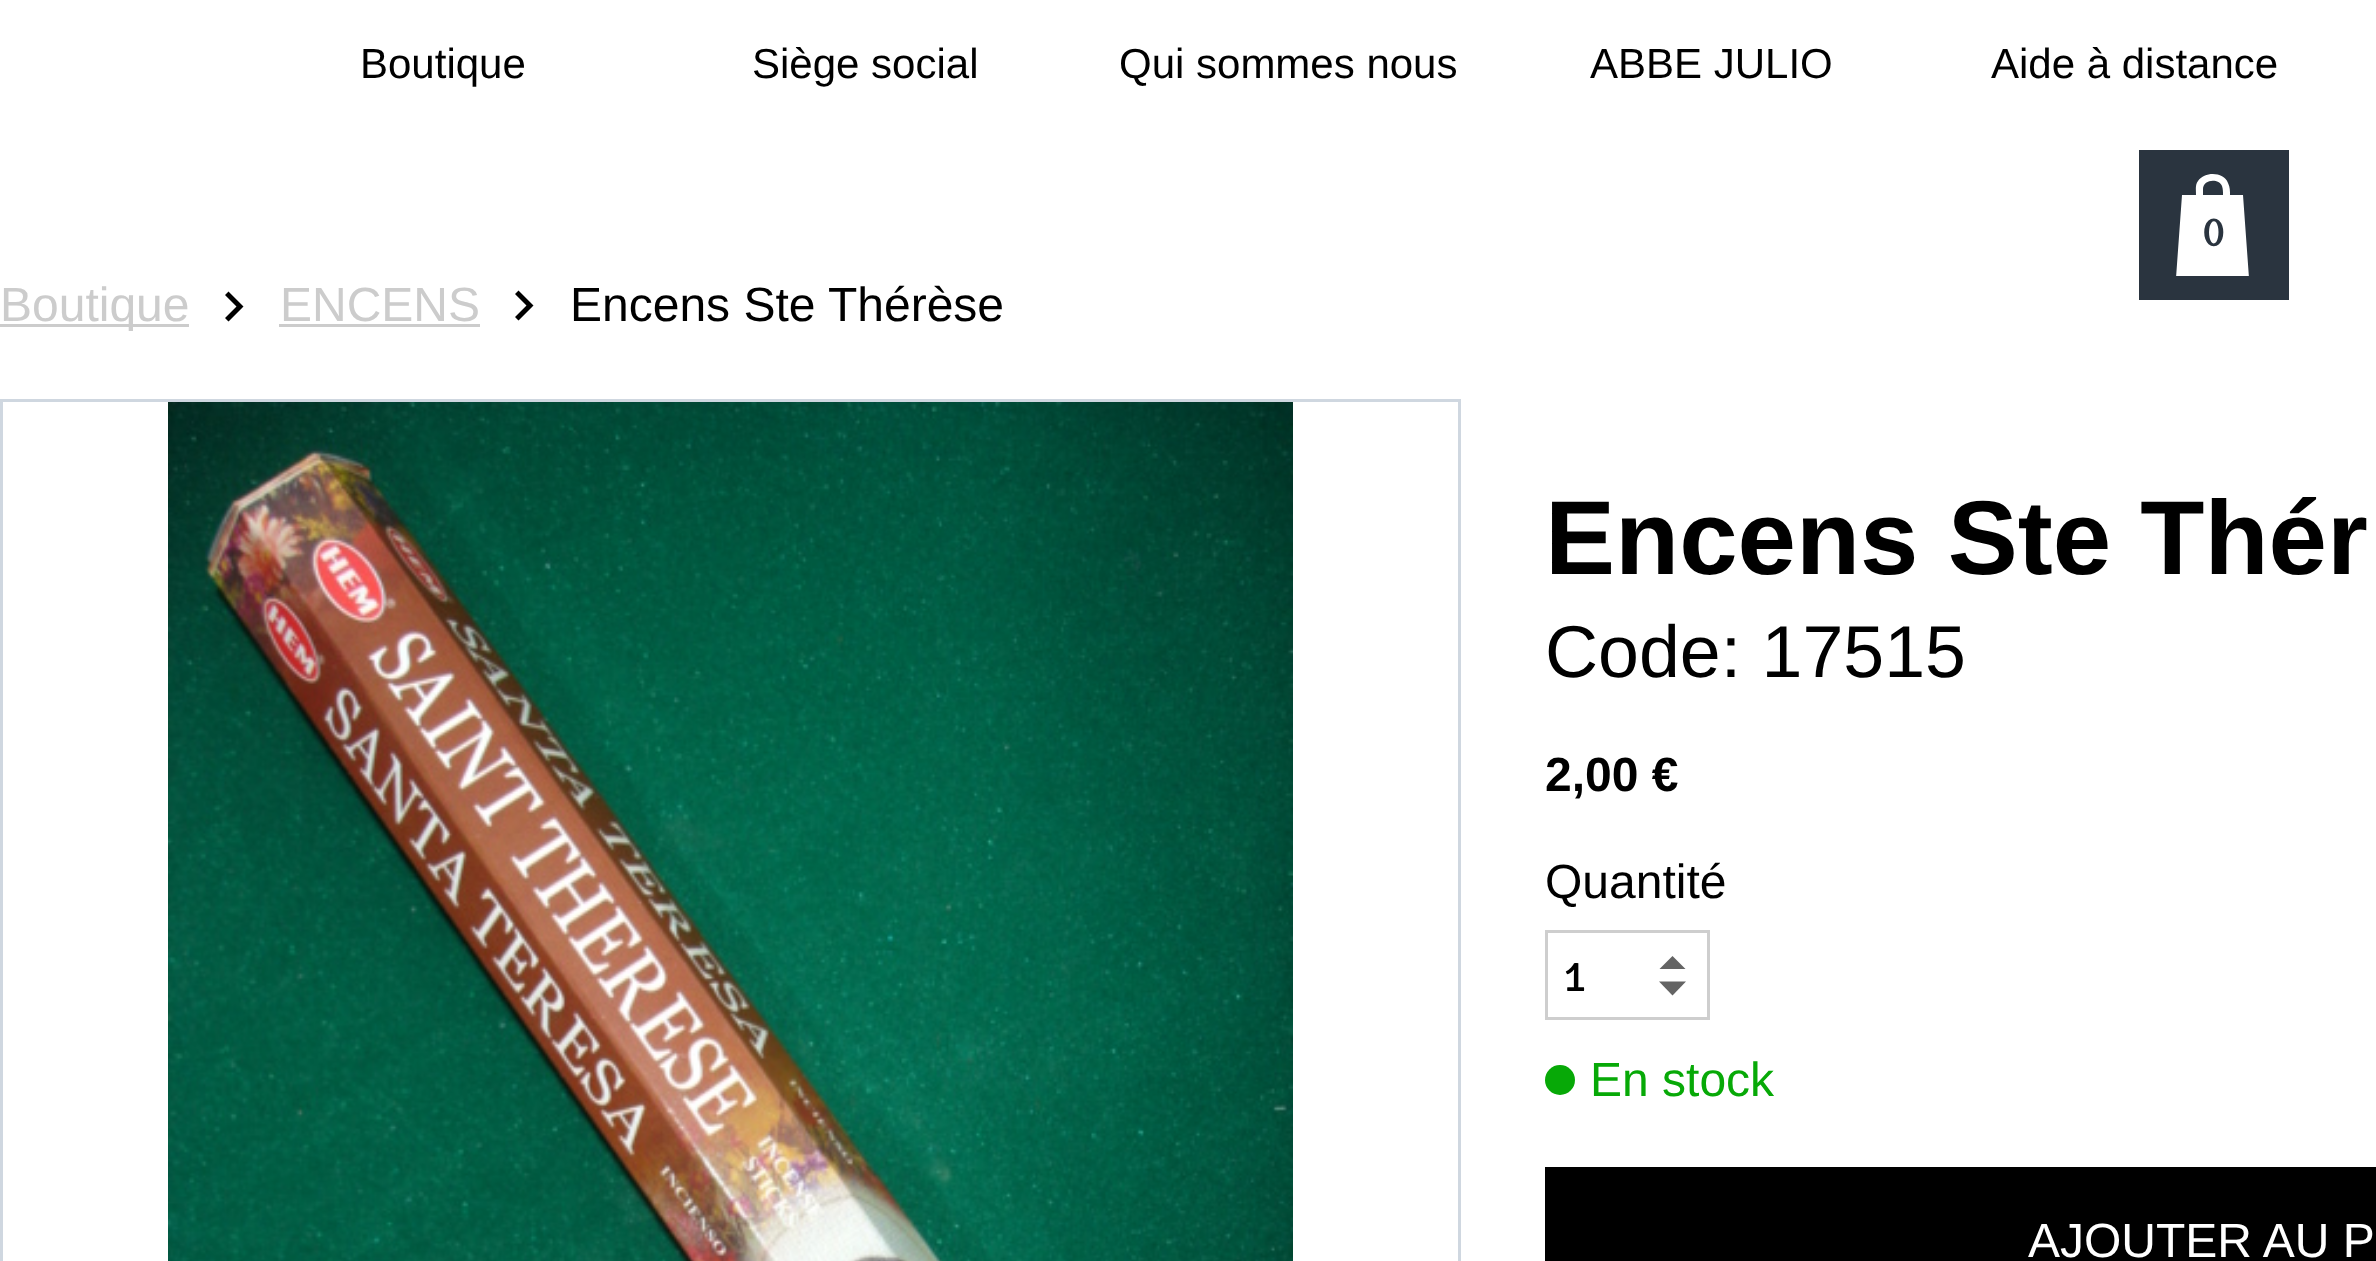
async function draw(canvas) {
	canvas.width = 2376;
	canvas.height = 1261;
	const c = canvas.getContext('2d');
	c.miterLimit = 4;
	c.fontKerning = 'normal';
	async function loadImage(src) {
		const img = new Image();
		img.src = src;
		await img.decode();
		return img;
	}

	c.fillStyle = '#fff';
	c.fillRect(0, 0, 2376, 1261);
	c.font = '42px Liberation Sans';
	c.fillStyle = '#000';
	for (const [text, x, y] of [
		['Boutique', 360, 78],
		['Siège social', 752, 78],
		['Qui sommes nous', 1119, 78],
		['ABBE JULIO', 1590, 78],
		['Aide à distance', 1991, 78],
	]) {
		c.fillText(text, x, y);
	}
	c.fillStyle = '#ccc';
	c.fillRect(0, 324, 189, 3);
	c.font = '48px Liberation Sans';
	c.fillText('Boutique', 0, 321);
	c.fillStyle = '#000';
	c.beginPath();
	c.moveTo(236.5, 306.5);
	c.lineTo(225, 318);
	c.lineTo(228.5, 321.5);
	c.lineTo(243.5, 306.5);
	c.lineTo(228.5, 291.5);
	c.lineTo(225, 295);
	c.closePath();
	c.fill();
	c.fillStyle = '#ccc';
	c.fillText('ENCENS', 280, 321);
	c.fillRect(279, 324, 201, 3);
	c.fillStyle = '#000';
	c.beginPath();
	c.moveTo(526.5, 305.5);
	c.lineTo(515, 317);
	c.lineTo(518.5, 320.5);
	c.lineTo(533.5, 305.5);
	c.lineTo(518.5, 290.5);
	c.lineTo(515, 294);
	c.closePath();
	c.fill();
	c.fillText('Encens Ste Thérèse', 570, 321);
	c.strokeStyle = '#cfd7e0';
	c.lineWidth = 3;
	c.strokeRect(1.5, 400.5, 1458, 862);
	c.drawImage(await loadImage('img1.png'), 168, 402, 1125, 859);
	c.font = 'bold 105px Liberation Sans';
	c.fillText('Encens Ste Thér', 1545, 574);
	c.font = '73.5px Liberation Sans';
	c.fillText('Code: 17515', 1545, 677);
	c.font = 'bold 48px Liberation Sans';
	c.fillText('2,00 €', 1545, 791);
	c.font = '48px Liberation Sans';
	c.fillText('Quantité', 1545, 898);
	c.strokeStyle = '#cecece';
	c.strokeRect(1546.5, 931.5, 162, 87);
	c.font = '300 44px Signika';
	c.fillText('1', 1563, 991);
	c.save();
	c.beginPath();
	c.rect(1659, 954, 27, 15);
	c.clip();
	c.fillStyle = '#646464';
	c.beginPath();
	c.moveTo(1686, 969.5);
	c.lineTo(1672.5, 956);
	c.lineTo(1659, 969.5);
	c.closePath();
	c.fill();
	c.restore();
	c.fillStyle = '#646464';
	c.beginPath();
	c.moveTo(1659, 981.5);
	c.lineTo(1672.5, 995.5);
	c.lineTo(1686, 981.5);
	c.closePath();
	c.fill();
	c.fillStyle = '#07a907';
	c.beginPath();
	c.arc(1560, 1080, 15, 0, 2 * Math.PI);
	c.fill();
	c.font = '48px Liberation Sans';
	c.fillText('En stock', 1590, 1096);
	c.fillStyle = '#000';
	c.fillRect(1545, 1167, 831, 94);
	c.fillStyle = '#fff';
	c.fillText('AJOUTER AU P', 2028, 1257);
	c.fillStyle = '#2a343f';
	c.fillRect(2139, 150, 150, 150);
	c.save();
	c.beginPath();
	c.rect(2175, 174, 75, 102);
	c.clip();
	c.fillStyle = '#fff';
	c.beginPath();
	c.moveTo(2243, 195);
	c.lineTo(2230, 195);
	c.bezierCurveTo(2230, 191, 2230, 187, 2228, 183);
	c.bezierCurveTo(2224, 172, 2205, 171, 2198, 181);
	c.bezierCurveTo(2195, 185, 2196, 190, 2196, 195);
	c.lineTo(2182, 195);
	c.lineTo(2176, 278);
	c.lineTo(2249, 278);
	c.closePath();
	c.moveTo(2203, 189);
	c.bezierCurveTo(2203, 179, 2219, 178, 2222, 186);
	c.bezierCurveTo(2223, 189, 2223, 192, 2223, 195);
	c.lineTo(2203, 195);
	c.closePath();
	c.fill();
	c.restore();
	c.font = 'bold 42px Amiri';
	c.fillText('0', 2202, 246);
}

draw(document.querySelector('canvas'));
